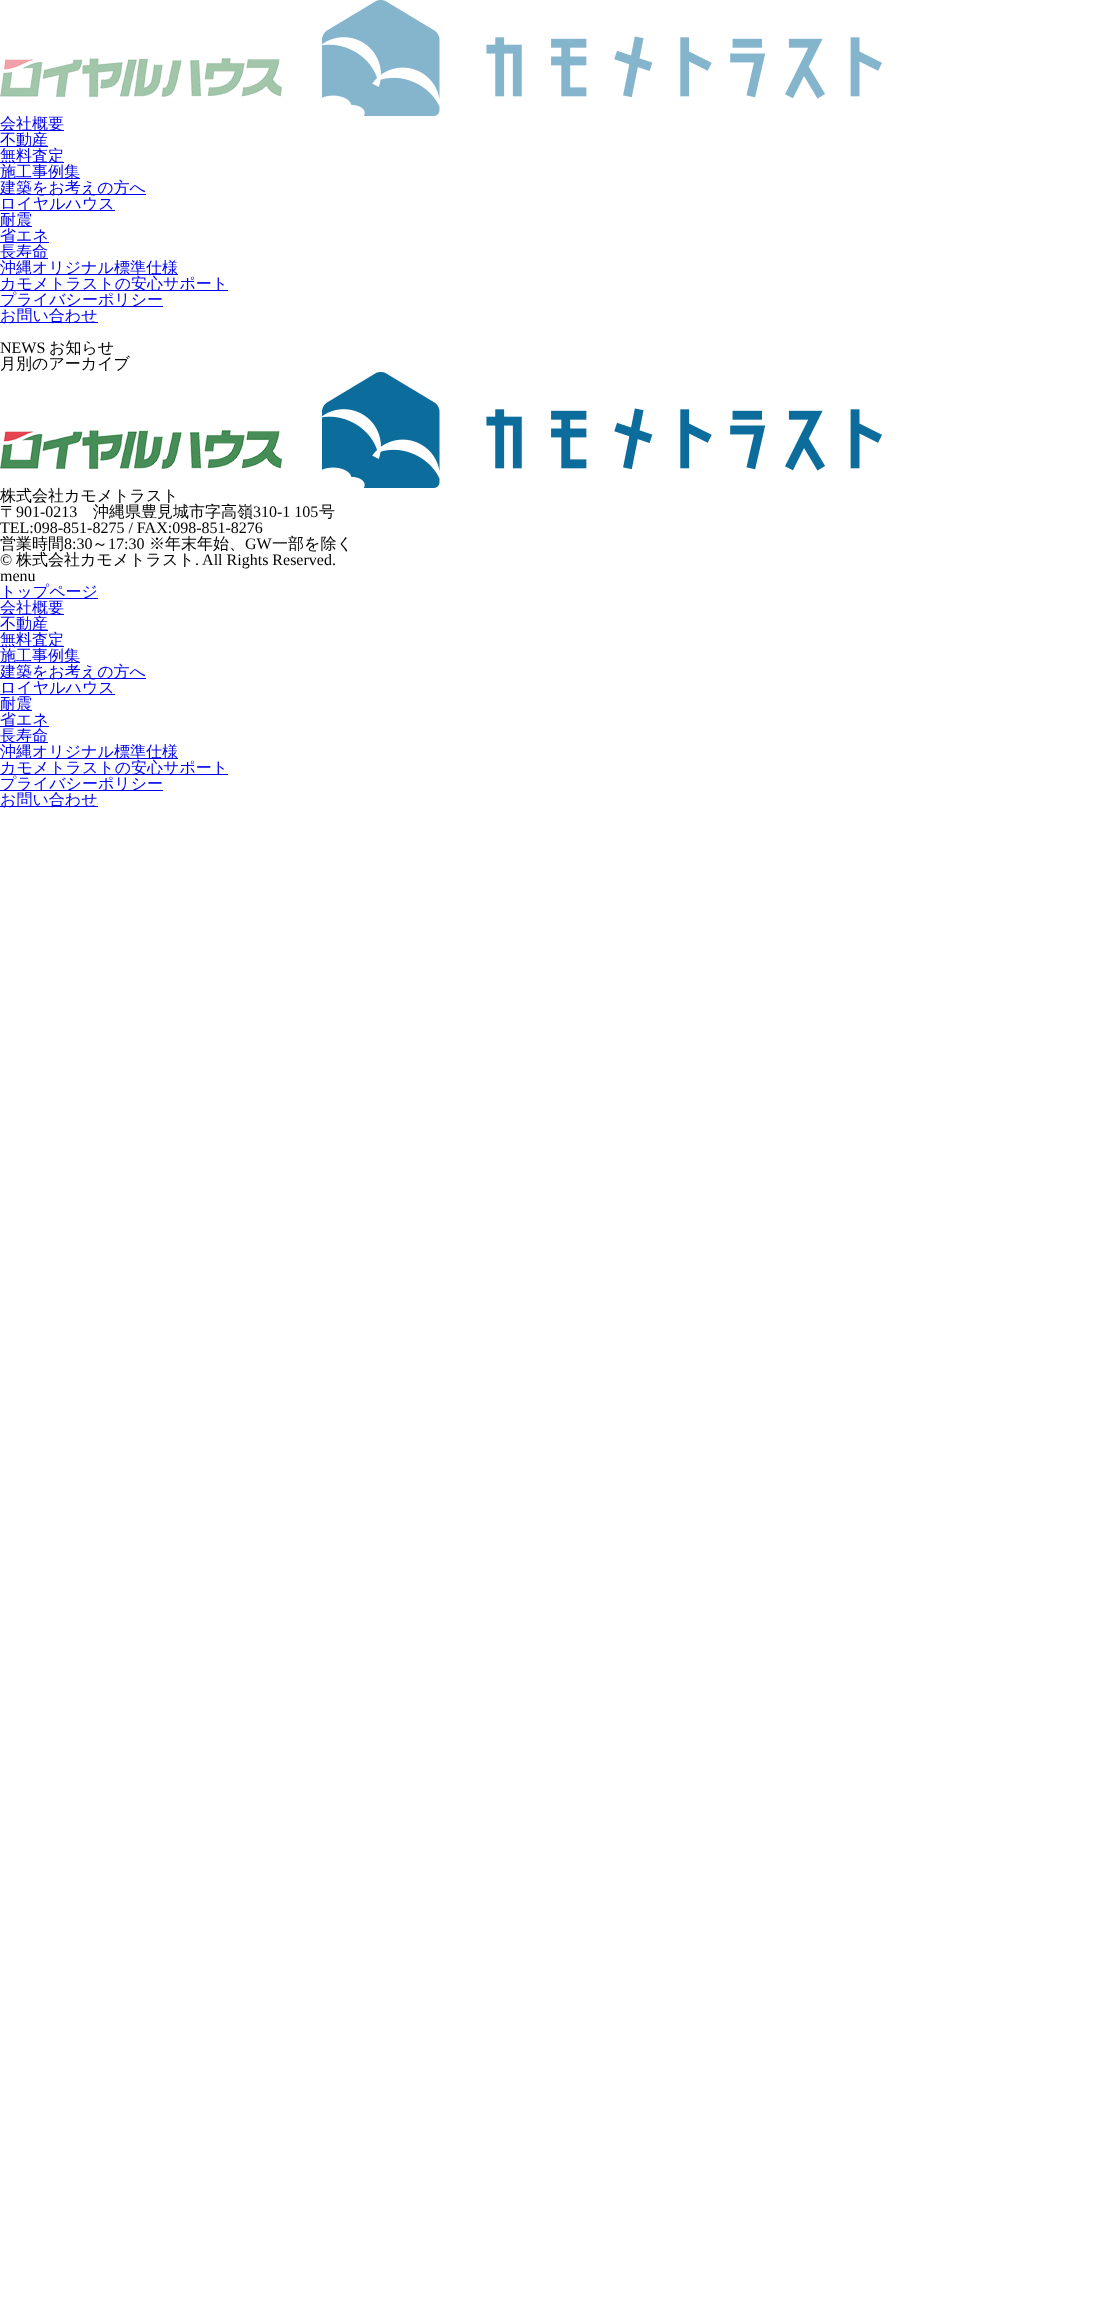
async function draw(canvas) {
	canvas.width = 1101;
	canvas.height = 2315;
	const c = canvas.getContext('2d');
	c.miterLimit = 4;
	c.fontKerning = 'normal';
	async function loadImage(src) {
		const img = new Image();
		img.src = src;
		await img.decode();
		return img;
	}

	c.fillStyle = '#fff';
	c.fillRect(0, 0, 1101, 2315);
	c.fillStyle = '#00e';
	c.fillRect(0, 130, 64, 1);
	c.font = '500 16px WenQuanYi Zen Hei';
	c.fillText('会社概要', 0, 129);
	c.drawImage(await loadImage('img1.png'), 0, 0, 882, 116);
	c.fillRect(0, 146, 48, 1);
	c.fillText('不動産', 0, 145);
	c.fillRect(0, 162, 64, 1);
	c.fillText('無料査定', 0, 161);
	c.fillRect(0, 178, 80, 1);
	c.fillText('施工事例集', 0, 177);
	c.fillRect(0, 194, 146, 1);
	c.fillText('建築をお考えの方へ', 0, 193);
	c.fillRect(0, 210, 115, 1);
	c.fillText('ロイヤルハウス', 0, 209);
	c.fillRect(0, 226, 32, 1);
	c.fillText('耐震', 0, 225);
	c.fillRect(0, 242, 49, 1);
	c.fillText('省エネ', 0, 241);
	c.fillRect(0, 258, 48, 1);
	c.fillText('長寿命', 0, 257);
	c.fillRect(0, 274, 178, 1);
	c.fillText('沖縄オリジナル標準仕様', 0, 273);
	c.fillRect(0, 290, 228, 1);
	c.fillText('カモメトラストの安心サポート', 0, 289);
	c.fillRect(0, 306, 163, 1);
	c.fillText('プライバシーポリシー', 0, 305);
	c.fillRect(0, 322, 98, 1);
	c.fillText('お問い合わせ', 0, 321);
	c.font = '16px Liberation Serif';
	c.fillStyle = '#000';
	c.fillText('NEWS', 0, 353);
	c.font = '500 16px WenQuanYi Zen Hei';
	c.fillText('お知らせ', 49, 353);
	c.fillText('月別のアーカイブ', 0, 369);
	c.drawImage(await loadImage('img2.png'), 0, 372, 882, 116);
	c.fillText('株式会社カモメトラスト', 0, 501);
	c.fillText('〒', 0, 517);
	c.font = '16px Liberation Serif';
	c.fillText('901-0213', 16, 517);
	c.font = '500 16px WenQuanYi Zen Hei';
	c.fillText('沖縄県豊見城市字高嶺', 93, 517);
	c.font = '16px Liberation Serif';
	c.fillText('310-1 105', 253, 517);
	c.font = '500 16px WenQuanYi Zen Hei';
	c.fillText('号', 319, 517);
	c.font = '16px Liberation Serif';
	c.fillText('TEL:098-851-8275 / FAX:098-851-8276', 0, 533);
	c.font = '500 16px WenQuanYi Zen Hei';
	c.fillText('営業時間', 0, 549);
	c.font = '16px Liberation Serif';
	c.fillText('8:30', 64, 549);
	c.font = '500 16px WenQuanYi Zen Hei';
	c.fillText('～', 92, 549);
	c.font = '16px Liberation Serif';
	c.fillText('17:30', 108, 549);
	c.font = '500 16px WenQuanYi Zen Hei';
	c.fillText('※年末年始、', 149, 549);
	c.font = '16px Liberation Serif';
	c.fillText('GW', 245, 549);
	c.font = '500 16px WenQuanYi Zen Hei';
	c.fillText('一部を除く', 272, 549);
	c.font = '16px Liberation Serif';
	c.fillText('©', 0, 565);
	c.font = '500 16px WenQuanYi Zen Hei';
	c.fillText('株式会社カモメトラスト', 16, 565);
	c.font = '16px Liberation Serif';
	c.fillText('. All Rights Reserved.', 195, 565);
	c.fillText('menu', 0, 581);
	c.fillStyle = '#00e';
	c.fillRect(0, 598, 98, 1);
	c.font = '500 16px WenQuanYi Zen Hei';
	c.fillText('トップページ', 0, 597);
	c.fillRect(0, 614, 64, 1);
	c.fillText('会社概要', 0, 613);
	c.fillRect(0, 630, 48, 1);
	c.fillText('不動産', 0, 629);
	c.fillRect(0, 646, 64, 1);
	c.fillText('無料査定', 0, 645);
	c.fillRect(0, 662, 80, 1);
	c.fillText('施工事例集', 0, 661);
	c.fillRect(0, 678, 146, 1);
	c.fillText('建築をお考えの方へ', 0, 677);
	c.fillRect(0, 694, 115, 1);
	c.fillText('ロイヤルハウス', 0, 693);
	c.fillRect(0, 710, 32, 1);
	c.fillText('耐震', 0, 709);
	c.fillRect(0, 726, 49, 1);
	c.fillText('省エネ', 0, 725);
	c.fillRect(0, 742, 48, 1);
	c.fillText('長寿命', 0, 741);
	c.fillRect(0, 758, 178, 1);
	c.fillText('沖縄オリジナル標準仕様', 0, 757);
	c.fillRect(0, 774, 228, 1);
	c.fillText('カモメトラストの安心サポート', 0, 773);
	c.fillRect(0, 790, 163, 1);
	c.fillText('プライバシーポリシー', 0, 789);
	c.fillRect(0, 806, 98, 1);
	c.fillText('お問い合わせ', 0, 805);
}

draw(document.querySelector('canvas'));
